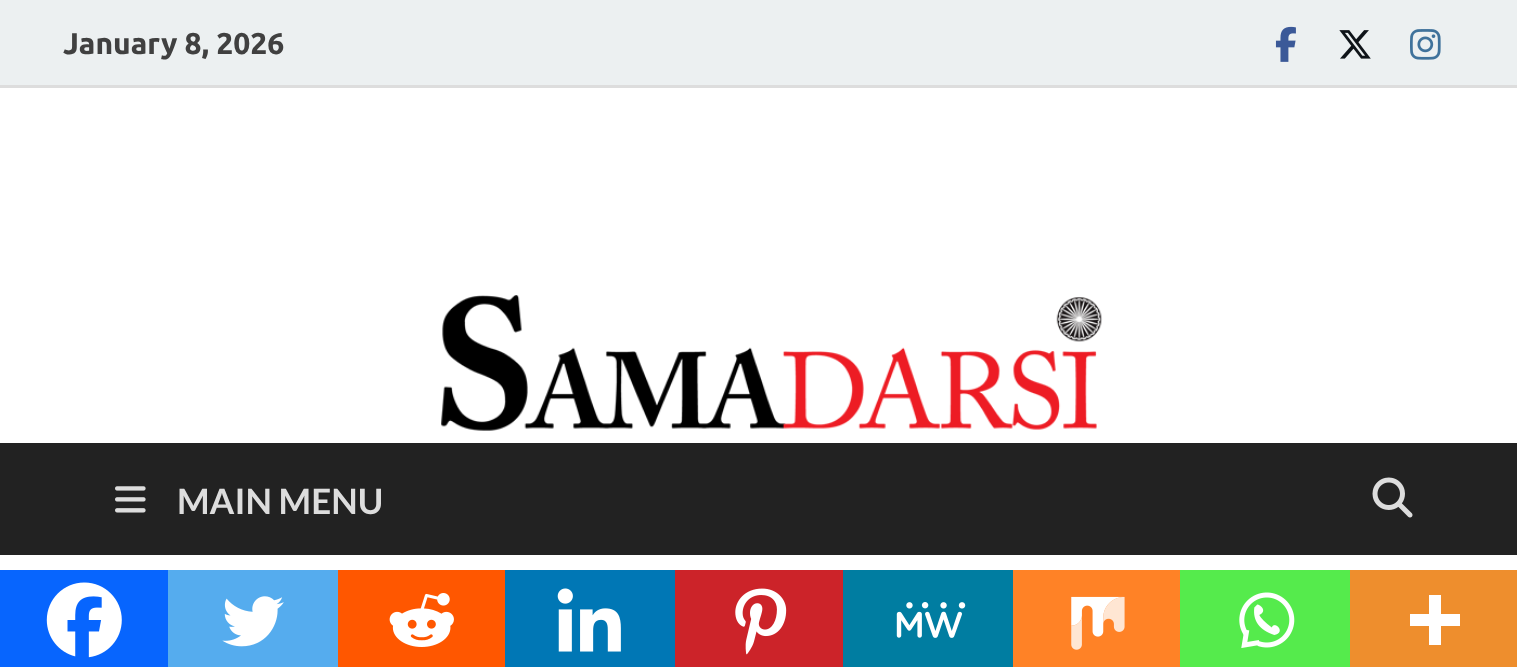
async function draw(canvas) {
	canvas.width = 1517;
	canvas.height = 667;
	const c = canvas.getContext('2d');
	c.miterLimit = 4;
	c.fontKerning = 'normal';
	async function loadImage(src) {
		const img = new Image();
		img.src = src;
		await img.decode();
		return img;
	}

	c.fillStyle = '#fff';
	c.fillRect(0, 0, 1517, 667);
	c.fillStyle = '#ecf0f1';
	c.fillRect(0, 0, 1517, 85);
	c.fillStyle = '#ddd';
	c.fillRect(0, 85, 1517, 3);
	c.font = 'bold 30px Ubuntu';
	c.fillStyle = '#404040';
	c.fillText('January 8, 2026', 63, 54);
	c.drawImage(await loadImage('img1.png'), 1275, 26, 21, 36);
	c.drawImage(await loadImage('img2.png'), 1339, 30, 32, 29);
	c.drawImage(await loadImage('img3.png'), 1410, 29, 31, 31);
	c.drawImage(await loadImage('img4.png'), 441, 295, 662, 136);
	c.fillStyle = '#222';
	c.fillRect(0, 443, 1517, 112);
	c.drawImage(await loadImage('img5.png'), 115, 486, 31, 27);
	c.font = 'bold 35px Lato';
	c.fillStyle = '#ddd';
	c.fillText('MAIN MENU', 177, 514);
	c.drawImage(await loadImage('img6.png'), 1372, 477, 41, 41);
	c.fillStyle = '#0765fe';
	c.fillRect(0, 570, 168, 97);
	c.drawImage(await loadImage('img7.png'), 46, 582, 76, 76);
	c.fillStyle = '#55acee';
	c.fillRect(168, 570, 170, 97);
	c.drawImage(await loadImage('img8.png'), 222, 596, 62, 51);
	c.fillStyle = '#ff5700';
	c.fillRect(338, 570, 167, 97);
	c.drawImage(await loadImage('img9.png'), 389, 593, 65, 54);
	c.fillStyle = '#0077b5';
	c.fillRect(505, 570, 170, 97);
	c.drawImage(await loadImage('img10.png'), 557, 588, 64, 64);
	c.fillStyle = '#cc2329';
	c.fillRect(675, 570, 168, 97);
	c.drawImage(await loadImage('img11.png'), 735, 588, 52, 67);
	c.fillStyle = '#007da1';
	c.fillRect(843, 570, 170, 97);
	c.drawImage(await loadImage('img12.png'), 896, 602, 70, 36);
	c.fillStyle = '#ff8226';
	c.fillRect(1013, 570, 167, 97);
	c.drawImage(await loadImage('img13.png'), 1071, 596, 54, 54);
	c.fillStyle = '#55eb4c';
	c.fillRect(1180, 570, 170, 97);
	c.drawImage(await loadImage('img14.png'), 1239, 592, 56, 56);
	c.fillStyle = '#ee8e2d';
	c.fillRect(1350, 570, 167, 97);
	c.fillStyle = '#fff';
	c.beginPath();
	c.moveTo(1441, 614);
	c.lineTo(1441, 595);
	c.lineTo(1429, 595);
	c.lineTo(1429, 614);
	c.lineTo(1410, 614);
	c.lineTo(1410, 626);
	c.lineTo(1429, 626);
	c.lineTo(1429, 645);
	c.lineTo(1441, 645);
	c.lineTo(1441, 626);
	c.lineTo(1460, 626);
	c.lineTo(1460, 614);
	c.closePath();
	c.fill('evenodd');
}

draw(document.querySelector('canvas'));
